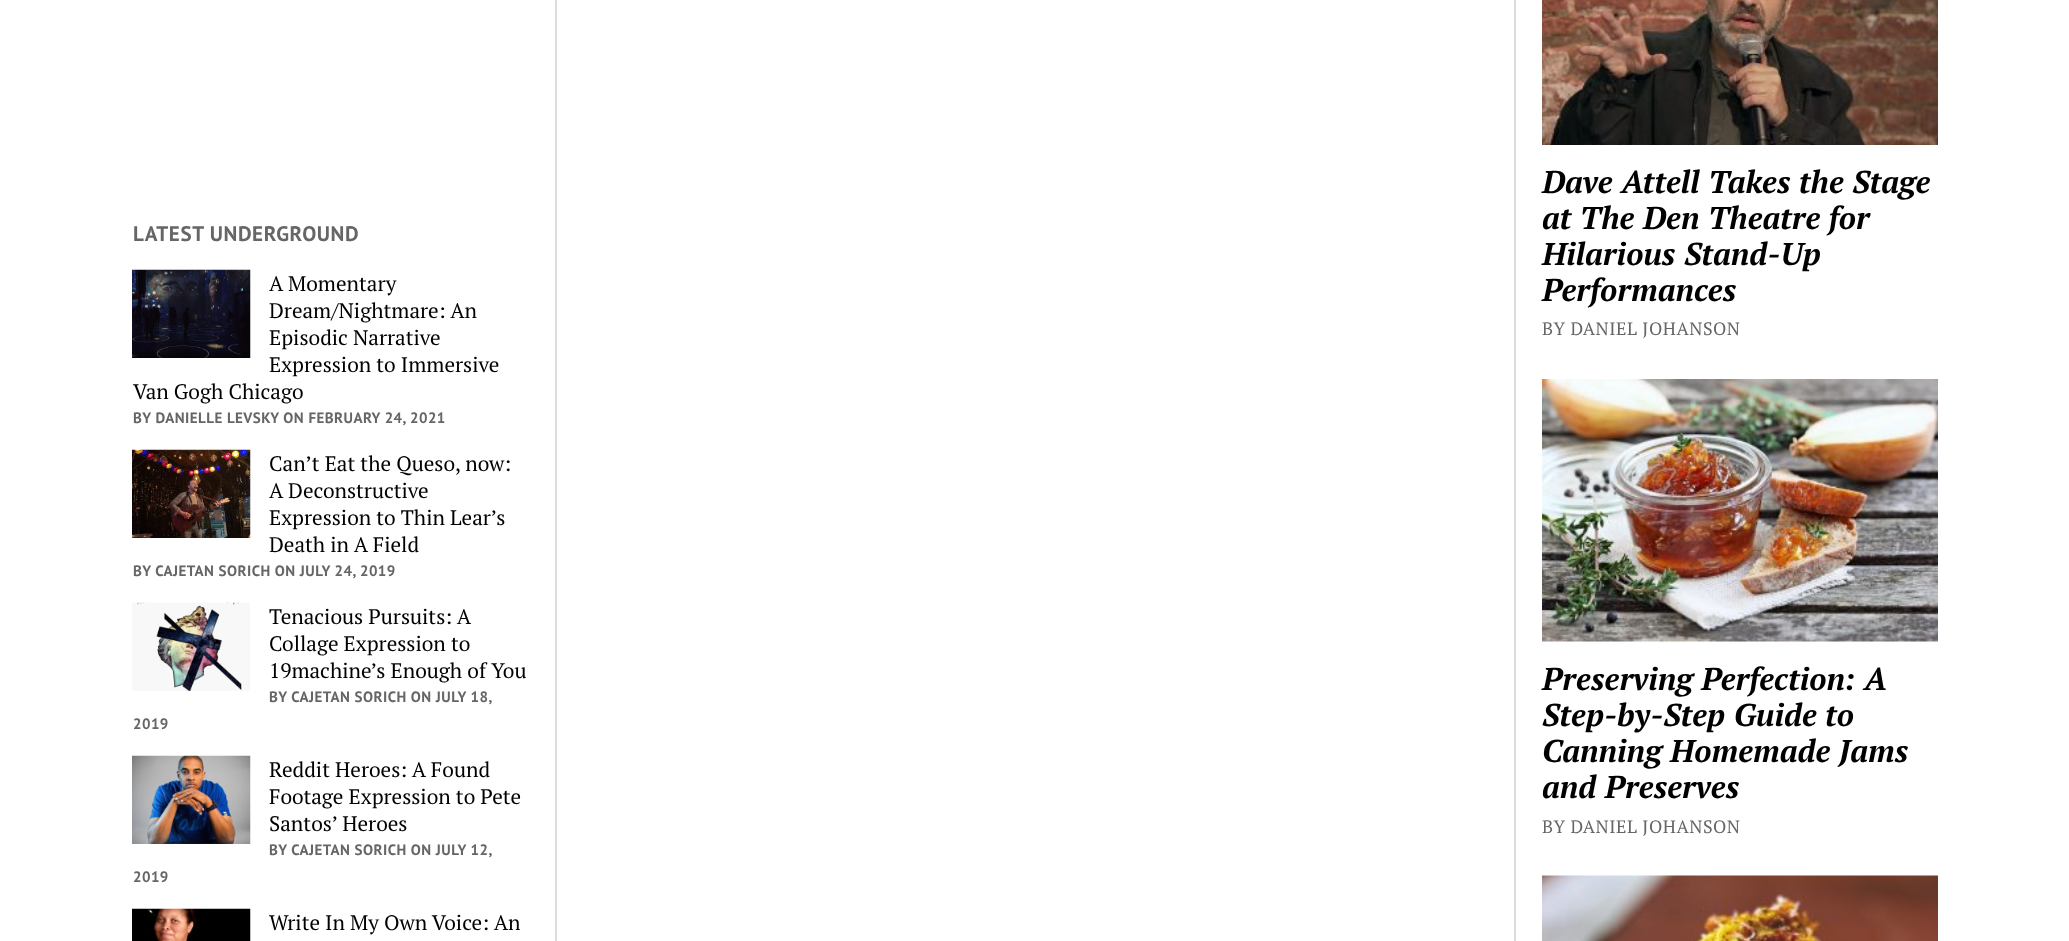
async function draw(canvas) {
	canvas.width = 2069;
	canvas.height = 941;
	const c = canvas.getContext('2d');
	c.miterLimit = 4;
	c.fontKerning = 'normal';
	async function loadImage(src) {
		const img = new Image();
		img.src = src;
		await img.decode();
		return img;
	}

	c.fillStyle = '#fff';
	c.fillRect(0, 0, 2069, 941);
	c.fillStyle = '#dcdcdc';
	c.fillRect(555, 0, 2, 941);
	c.fillRect(1514, 0, 2, 941);
	c.letterSpacing = '0.6px';
	c.font = 'bold 21px PT Sans';
	c.fillStyle = '#666';
	c.fillText('LATEST UNDERGROUND', 133, 241);
	c.drawImage(await loadImage('img1.png'), 132, 269, 119, 89);
	c.letterSpacing = '0px';
	c.font = '21px PT Serif';
	c.fillStyle = '#000';
	for (const [text, x, y] of [
		['A Momentary', 269, 291],
		['Dream/Nightmare: An', 269, 318],
		['Episodic Narrative', 269, 345],
		['Expression to Immersive', 269, 372],
		['Van Gogh Chicago', 133, 399],
	]) {
		c.fillText(text, x, y);
	}
	c.letterSpacing = '0.45px';
	c.font = 'bold 15px PT Sans';
	c.fillStyle = '#666';
	c.fillText('BY DANIELLE LEVSKY ON FEBRUARY 24, 2021', 133, 423);
	c.drawImage(await loadImage('img2.png'), 132, 449, 119, 89);
	c.letterSpacing = '0px';
	c.font = '21px PT Serif';
	c.fillStyle = '#000';
	for (const [text, x, y] of [
		['Can’t Eat the Queso, now:', 269, 471],
		['A Deconstructive', 269, 498],
		['Expression to Thin Lear’s', 269, 525],
		['Death in A Field', 269, 552],
	]) {
		c.fillText(text, x, y);
	}
	c.letterSpacing = '0.45px';
	c.font = 'bold 15px PT Sans';
	c.fillStyle = '#666';
	c.fillText('BY CAJETAN SORICH ON JULY 24, 2019', 133, 576);
	c.drawImage(await loadImage('img3.png'), 132, 602, 118, 89);
	c.letterSpacing = '0px';
	c.font = '21px PT Serif';
	c.fillStyle = '#000';
	for (const [text, x, y] of [
		['Tenacious Pursuits: A', 269, 624],
		['Collage Expression to', 269, 651],
		['19machine’s Enough of You', 269, 678],
	]) {
		c.fillText(text, x, y);
	}
	c.letterSpacing = '0.45px';
	c.font = 'bold 15px PT Sans';
	c.fillStyle = '#666';
	c.fillText('BY CAJETAN SORICH ON JULY 18,', 269, 702);
	c.fillText('2019', 133, 729);
	c.drawImage(await loadImage('img4.png'), 132, 755, 119, 89);
	c.letterSpacing = '0px';
	c.font = '21px PT Serif';
	c.fillStyle = '#000';
	for (const [text, x, y] of [
		['Reddit Heroes: A Found', 269, 777],
		['Footage Expression to Pete', 269, 804],
		['Santos’ Heroes', 269, 831],
	]) {
		c.fillText(text, x, y);
	}
	c.letterSpacing = '0.45px';
	c.font = 'bold 15px PT Sans';
	c.fillStyle = '#666';
	c.fillText('BY CAJETAN SORICH ON JULY 12,', 269, 855);
	c.fillText('2019', 133, 882);
	c.drawImage(await loadImage('img5.png'), 132, 908, 119, 33);
	c.letterSpacing = '0px';
	c.font = '21px PT Serif';
	c.fillStyle = '#000';
	c.fillText('Write In My Own Voice: An', 269, 930);
	c.drawImage(await loadImage('img6.png'), 1542, 0, 396, 145);
	c.font = 'italic bold 31.5px PT Serif';
	for (const [text, x, y] of [
		['Dave Attell Takes the Stage', 1542, 193],
		['at The Den Theatre for', 1542, 229],
		['Hilarious Stand-Up', 1542, 265],
		['Performances', 1542, 301],
	]) {
		c.fillText(text, x, y);
	}
	c.letterSpacing = '0.5px';
	c.font = '18px PT Serif';
	c.fillStyle = '#666';
	c.fillText('BY DANIEL JOHANSON', 1542, 335);
	c.drawImage(await loadImage('img7.png'), 1542, 379, 396, 263);
	c.letterSpacing = '0px';
	c.font = 'italic bold 31.5px PT Serif';
	c.fillStyle = '#000';
	for (const [text, x, y] of [
		['Preserving Perfection: A', 1542, 690],
		['Step-by-Step Guide to', 1542, 726],
		['Canning Homemade Jams', 1542, 762],
		['and Preserves', 1542, 798],
	]) {
		c.fillText(text, x, y);
	}
	c.letterSpacing = '0.5px';
	c.font = '18px PT Serif';
	c.fillStyle = '#666';
	c.fillText('BY DANIEL JOHANSON', 1542, 833);
	c.drawImage(await loadImage('img8.png'), 1542, 875, 396, 66);
}

draw(document.querySelector('canvas'));
